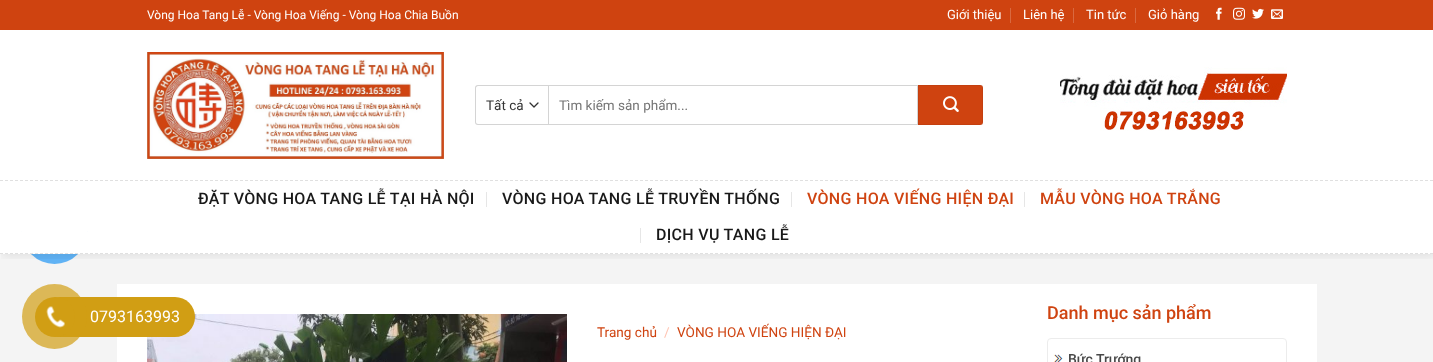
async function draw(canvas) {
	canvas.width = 1433;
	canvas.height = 362;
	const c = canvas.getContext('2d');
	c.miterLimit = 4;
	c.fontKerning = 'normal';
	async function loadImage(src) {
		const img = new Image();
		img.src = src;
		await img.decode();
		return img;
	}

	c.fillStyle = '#fff';
	c.fillRect(0, 0, 1433, 362);
	c.fillStyle = '#f4f4f4';
	c.fillRect(0, 254, 1433, 108);
	c.fillStyle = '#2196f3b3';
	c.beginPath();
	c.arc(54.5, 231.5, 32.5, 0, 2 * Math.PI);
	c.fill();
	c.fillStyle = '#fff';
	c.fillRect(117, 284, 1200, 78);
	c.drawImage(await loadImage('img9.png'), 147, 314, 420, 48);
	c.fillStyle = '#d19e14';
	c.beginPath();
	c.roundRect(40, 297, 155, 40, 20);
	c.fill();
	c.fillStyle = '#d19e14b3';
	c.beginPath();
	c.arc(54.5, 316.5, 32.5, 0, 2 * Math.PI);
	c.fill();
	c.fillStyle = '#d19e14';
	c.beginPath();
	c.arc(55, 317, 20, 0, 2 * Math.PI);
	c.fill();
	c.drawImage(await loadImage('img1.png'), 46, 306, 19, 22);
	c.font = '16px Roboto';
	c.fillStyle = '#fff';
	c.fillText('0793163993', 90, 322);
	c.save();
	c.beginPath();
	c.rect(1, 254, 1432, 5);
	c.clip();
	c.fillStyle = '#00000014';
	c.filter = 'blur(5px)';
	c.beginPath();
	c.rect(2, 2, 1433, 254);
	c.fill();
	c.filter = 'none';
	c.restore();
	c.fillStyle = '#cf4310';
	c.fillRect(0, 0, 1433, 30);
	c.font = '12px Roboto';
	c.fillStyle = '#fff';
	c.fillText('Vòng Hoa Tang Lễ - Vòng Hoa Viếng - Vòng Hoa Chia Buồn', 147, 19);
	c.font = '13px Roboto';
	c.fillText('Giới thiệu', 947, 19);
	c.fillStyle = '#d96940';
	c.fillRect(1010, 8, 1, 15);
	c.fillStyle = '#fff';
	c.fillText('Liên hệ', 1023, 19);
	c.fillStyle = '#d96940';
	c.fillRect(1073, 8, 1, 15);
	c.fillStyle = '#fff';
	c.fillText('Tin tức', 1086, 19);
	c.fillStyle = '#d96940';
	c.fillRect(1135, 8, 1, 15);
	c.fillStyle = '#fff';
	c.fillText('Giỏ hàng', 1148, 19);
	c.drawImage(await loadImage('img2.png'), 1216, 7, 6, 13);
	c.drawImage(await loadImage('img3.png'), 1233, 7, 12, 13);
	c.drawImage(await loadImage('img4.png'), 1252, 8, 12, 11);
	c.drawImage(await loadImage('img5.png'), 1271, 9, 12, 10);
	c.drawImage(await loadImage('img6.png'), 147, 52, 297, 107);
	c.beginPath();
	c.moveTo(530, 103);
	c.lineTo(534, 107);
	c.lineTo(538, 103);
	c.strokeStyle = '#333';
	c.lineWidth = 1.3;
	c.lineCap = 'round';
	c.lineJoin = 'round';
	c.stroke();
	c.fillStyle = '#d4d4d4';
	c.beginPath();
	c.moveTo(478, 85);
	c.lineTo(548, 85);
	c.lineTo(548, 125);
	c.lineTo(478, 125);
	c.bezierCurveTo(476, 125, 475, 124, 475, 122);
	c.lineTo(475, 88);
	c.bezierCurveTo(475, 86, 476, 85, 478, 85);
	c.closePath();
	c.moveTo(478, 86);
	c.lineTo(548, 86);
	c.lineTo(548, 124);
	c.lineTo(478, 124);
	c.bezierCurveTo(477, 124, 476, 123, 476, 122);
	c.lineTo(476, 88);
	c.bezierCurveTo(476, 87, 477, 86, 478, 86);
	c.closePath();
	c.fill('evenodd');
	c.font = '13.5px Roboto';
	c.fillStyle = '#333';
	c.fillText('Tất cả', 486, 110);
	c.strokeStyle = '#d4d4d4';
	c.lineWidth = 1;
	c.lineJoin = 'miter';
	c.strokeRect(548.5, 85.5, 369, 39);
	c.fillStyle = '#757575';
	c.fillText('Tìm kiếm sản phẩm...', 559, 110);
	c.fillStyle = '#cf4310';
	c.beginPath();
	c.roundRect(918, 85, 65, 40, [0, 3, 3, 0]);
	c.fill();
	c.strokeStyle = '#0000000d';
	c.strokeRect(918.5, 85.5, 64, 39);
	c.drawImage(await loadImage('img7.png'), 943, 96, 16, 16);
	c.drawImage(await loadImage('img8.png'), 1060, 67, 227, 64);
	c.fillStyle = '#fff';
	c.fillRect(22, 199, 65, 55);
	c.beginPath();
	c.moveTo(0, 180.5);
	c.lineTo(1433, 180.5);
	c.strokeStyle = '#e0e0e0';
	c.lineCap = 'butt';
	c.setLineDash([3, 2]);
	c.stroke();
	c.beginPath();
	c.moveTo(0, 253.5);
	c.lineTo(1433, 253.5);
	c.stroke();
	c.letterSpacing = '0.3px';
	c.font = '500 16px Roboto';
	c.fillStyle = '#191919';
	c.fillText('ĐẶT VÒNG HOA TANG LỄ TẠI HÀ NỘI', 198, 204);
	c.fillStyle = '#e6e6e6';
	c.fillRect(486, 192, 1, 15);
	c.fillStyle = '#191919';
	c.fillText('VÒNG HOA TANG LỄ TRUYỀN THỐNG', 502, 204);
	c.fillStyle = '#e6e6e6';
	c.fillRect(791, 192, 1, 15);
	c.fillStyle = '#cf4310';
	c.fillText('VÒNG HOA VIẾNG HIỆN ĐẠI', 807, 204);
	c.fillStyle = '#e6e6e6';
	c.fillRect(1024, 192, 1, 15);
	c.fillStyle = '#cf4310';
	c.fillText('MẪU VÒNG HOA TRẮNG', 1040, 204);
	c.fillStyle = '#e6e6e6';
	c.fillRect(640, 228, 1, 15);
	c.fillStyle = '#191919';
	c.fillText('DỊCH VỤ TANG LỄ', 656, 240);
	c.letterSpacing = '0px';
	c.font = '13.6px Roboto';
	c.fillStyle = '#cf4310';
	c.fillText('Trang chủ', 597, 337);
	c.fillStyle = '#ffc4b2';
	c.fillText('/', 664, 337);
	c.fillStyle = '#cf4310';
	c.fillText('VÒNG HOA VIẾNG HIỆN ĐẠI', 677, 337);
	c.font = '500 18px Roboto';
	c.fillText('Danh mục sản phẩm', 1047, 319);
	c.beginPath();
	c.roundRect(1047.5, 338.5, 239, 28, 3.5);
	c.strokeStyle = '#ececec';
	c.setLineDash([]);
	c.stroke();
	c.drawImage(await loadImage('img10.png'), 1053, 354, 10, 8);
	c.font = '500 14px Roboto';
	c.fillStyle = '#484848';
	c.fillText('Bức Trướng', 1068, 364);
}

draw(document.querySelector('canvas'));
